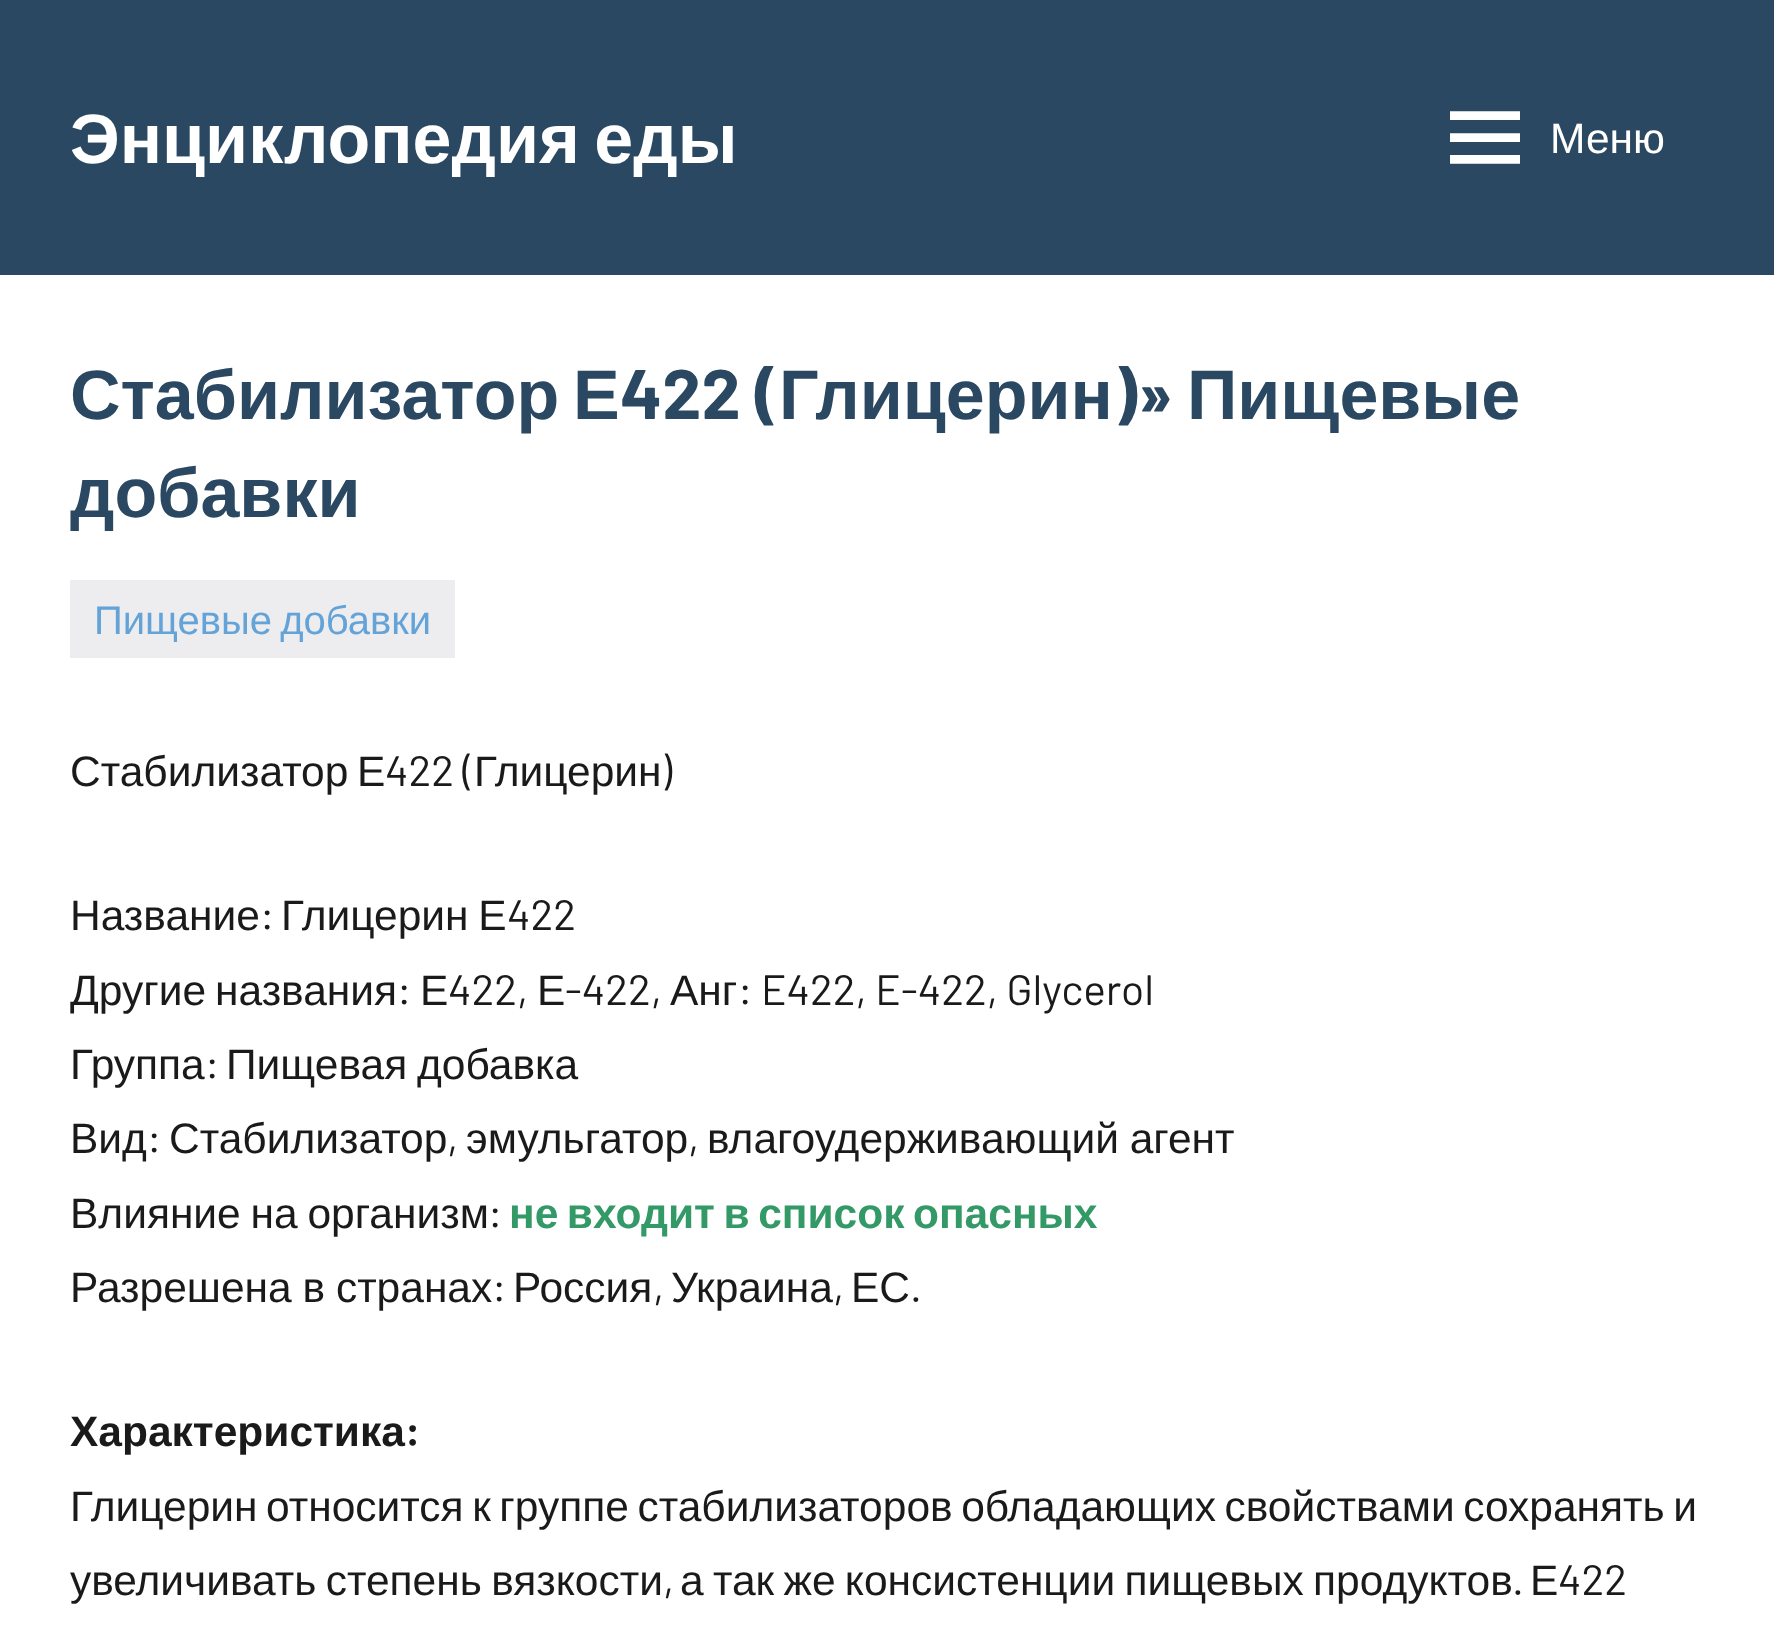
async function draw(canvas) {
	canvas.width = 1774;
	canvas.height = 1635;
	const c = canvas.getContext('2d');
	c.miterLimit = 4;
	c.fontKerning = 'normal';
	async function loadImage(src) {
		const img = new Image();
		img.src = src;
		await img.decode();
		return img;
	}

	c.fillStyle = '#2a4861';
	c.fillRect(0, 0, 1774, 1635);
	c.wordSpacing = '-5px';
	c.font = 'bold 70px Liberation Sans';
	c.fillStyle = '#fff';
	c.fillText('Энциклопедия еды', 70, 163);
	c.drawImage(await loadImage('img1.png'), 1450, 111, 70, 53);
	c.wordSpacing = '0px';
	c.font = '42.5px Liberation Sans';
	c.fillText('Меню', 1550, 153);
	c.fillRect(0, 275, 1774, 1360);
	c.font = 'bold 70px Liberation Sans';
	c.fillStyle = '#2a4861';
	c.fillText('Стабилизатор', 70, 419);
	c.fillText('Е', 573, 419);
	c.font = 'bold 70px Barlow';
	c.fillText('422 (', 620, 419);
	c.font = 'bold 70px Liberation Sans';
	c.fillText('Глицерин', 779, 419);
	c.font = 'bold 70px Barlow';
	c.fillText(')»', 1113, 419);
	c.font = 'bold 70px Liberation Sans';
	c.fillText('Пищевые', 1187, 419);
	c.fillText('добавки', 70, 517);
	c.fillStyle = '#ededef';
	c.fillRect(70, 580, 385, 78);
	c.wordSpacing = '-3px';
	c.font = '40px Liberation Sans';
	c.fillStyle = '#64a3d8';
	c.fillText('Пищевые добавки', 94, 634);
	c.wordSpacing = '0px';
	c.font = '42.5px Liberation Sans';
	c.fillStyle = '#1a1a1a';
	c.fillText('Стабилизатор', 70, 786);
	c.fillText('Е', 357, 786);
	c.font = '42.5px Barlow';
	c.fillText('422 (', 385, 786);
	c.font = '42.5px Liberation Sans';
	c.fillText('Глицерин', 474, 786);
	c.font = '42.5px Barlow';
	c.fillText(')', 661, 786);
	c.font = '42.5px Liberation Sans';
	c.fillText('Название', 70, 930);
	c.font = '42.5px Barlow';
	c.fillText(':', 260, 930);
	c.wordSpacing = '-2px';
	c.font = '42.5px Liberation Sans';
	c.fillText('Глицерин Е', 281, 930);
	c.wordSpacing = '0px';
	c.font = '42.5px Barlow';
	c.fillText('422', 507, 930);
	c.font = '42.5px Liberation Sans';
	c.fillText('Другие', 70, 1005);
	c.fillText('названия', 215, 1005);
	c.font = '42.5px Barlow';
	c.fillText(':', 397, 1005);
	c.font = '42.5px Liberation Sans';
	c.fillText('Е', 420, 1005);
	c.font = '42.5px Barlow';
	c.fillText('422,', 448, 1005);
	c.font = '42.5px Liberation Sans';
	c.fillText('Е', 537, 1005);
	c.font = '42.5px Barlow';
	c.fillText('-422,', 565, 1005);
	c.font = '42.5px Liberation Sans';
	c.fillText('Анг', 670, 1005);
	c.font = '42.5px Barlow';
	c.fillText(': E422, E-422, Glycerol', 738, 1005);
	c.font = '42.5px Liberation Sans';
	c.fillText('Группа', 70, 1079);
	c.font = '42.5px Barlow';
	c.fillText(':', 205, 1079);
	c.wordSpacing = '-2px';
	c.font = '42.5px Liberation Sans';
	c.fillText('Пищевая добавка', 226, 1079);
	c.wordSpacing = '0px';
	c.fillText('Вид', 70, 1153);
	c.font = '42.5px Barlow';
	c.fillText(':', 147, 1153);
	c.font = '42.5px Liberation Sans';
	c.fillText('Стабилизатор', 169, 1153);
	c.font = '42.5px Barlow';
	c.fillText(',', 447, 1153);
	c.font = '42.5px Liberation Sans';
	c.fillText('эмульгатор', 466, 1153);
	c.font = '42.5px Barlow';
	c.fillText(',', 688, 1153);
	c.wordSpacing = '-1px';
	c.font = '42.5px Liberation Sans';
	c.fillText('влагоудерживающий агент', 707, 1153);
	c.wordSpacing = '-2px';
	c.fillText('Влияние на организм', 70, 1228);
	c.wordSpacing = '0px';
	c.font = '42.5px Barlow';
	c.fillText(':', 488, 1228);
	c.wordSpacing = '-3.25px';
	c.font = 'bold 42.5px Liberation Sans';
	c.fillStyle = '#396';
	c.fillText('не входит в список опасных', 509, 1228);
	c.wordSpacing = '-1px';
	c.font = '42.5px Liberation Sans';
	c.fillStyle = '#1a1a1a';
	c.fillText('Разрешена в странах', 70, 1302);
	c.wordSpacing = '0px';
	c.font = '42.5px Barlow';
	c.fillText(':', 492, 1302);
	c.font = '42.5px Liberation Sans';
	c.fillText('Россия', 513, 1302);
	c.font = '42.5px Barlow';
	c.fillText(',', 653, 1302);
	c.font = '42.5px Liberation Sans';
	c.fillText('Украина', 671, 1302);
	c.font = '42.5px Barlow';
	c.fillText(',', 833, 1302);
	c.font = '42.5px Liberation Sans';
	c.fillText('ЕС', 851, 1302);
	c.font = '42.5px Barlow';
	c.fillText('.', 910, 1302);
	c.font = 'bold 42.5px Liberation Sans';
	c.fillText('Характеристика', 70, 1446);
	c.font = 'bold 42.5px Barlow';
	c.fillText(':', 405, 1446);
	c.wordSpacing = '-3.25px';
	c.font = '42.5px Liberation Sans';
	c.fillText('Глицерин относится к группе стабилизаторов обладающих свойствами сохранять и', 70, 1521);
	c.wordSpacing = '-2.5px';
	c.fillText('увеличивать степень вязкости', 70, 1595);
	c.wordSpacing = '0px';
	c.font = '42.5px Barlow';
	c.fillText(',', 663, 1595);
	c.wordSpacing = '-2.5px';
	c.font = '42.5px Liberation Sans';
	c.fillText('а так же консистенции пищевых продуктов', 680, 1595);
	c.wordSpacing = '0px';
	c.font = '42.5px Barlow';
	c.fillText('.', 1512, 1595);
	c.font = '42.5px Liberation Sans';
	c.fillText('Е', 1530, 1595);
	c.font = '42.5px Barlow';
	c.fillText('422', 1558, 1595);
}

draw(document.querySelector('canvas'));
